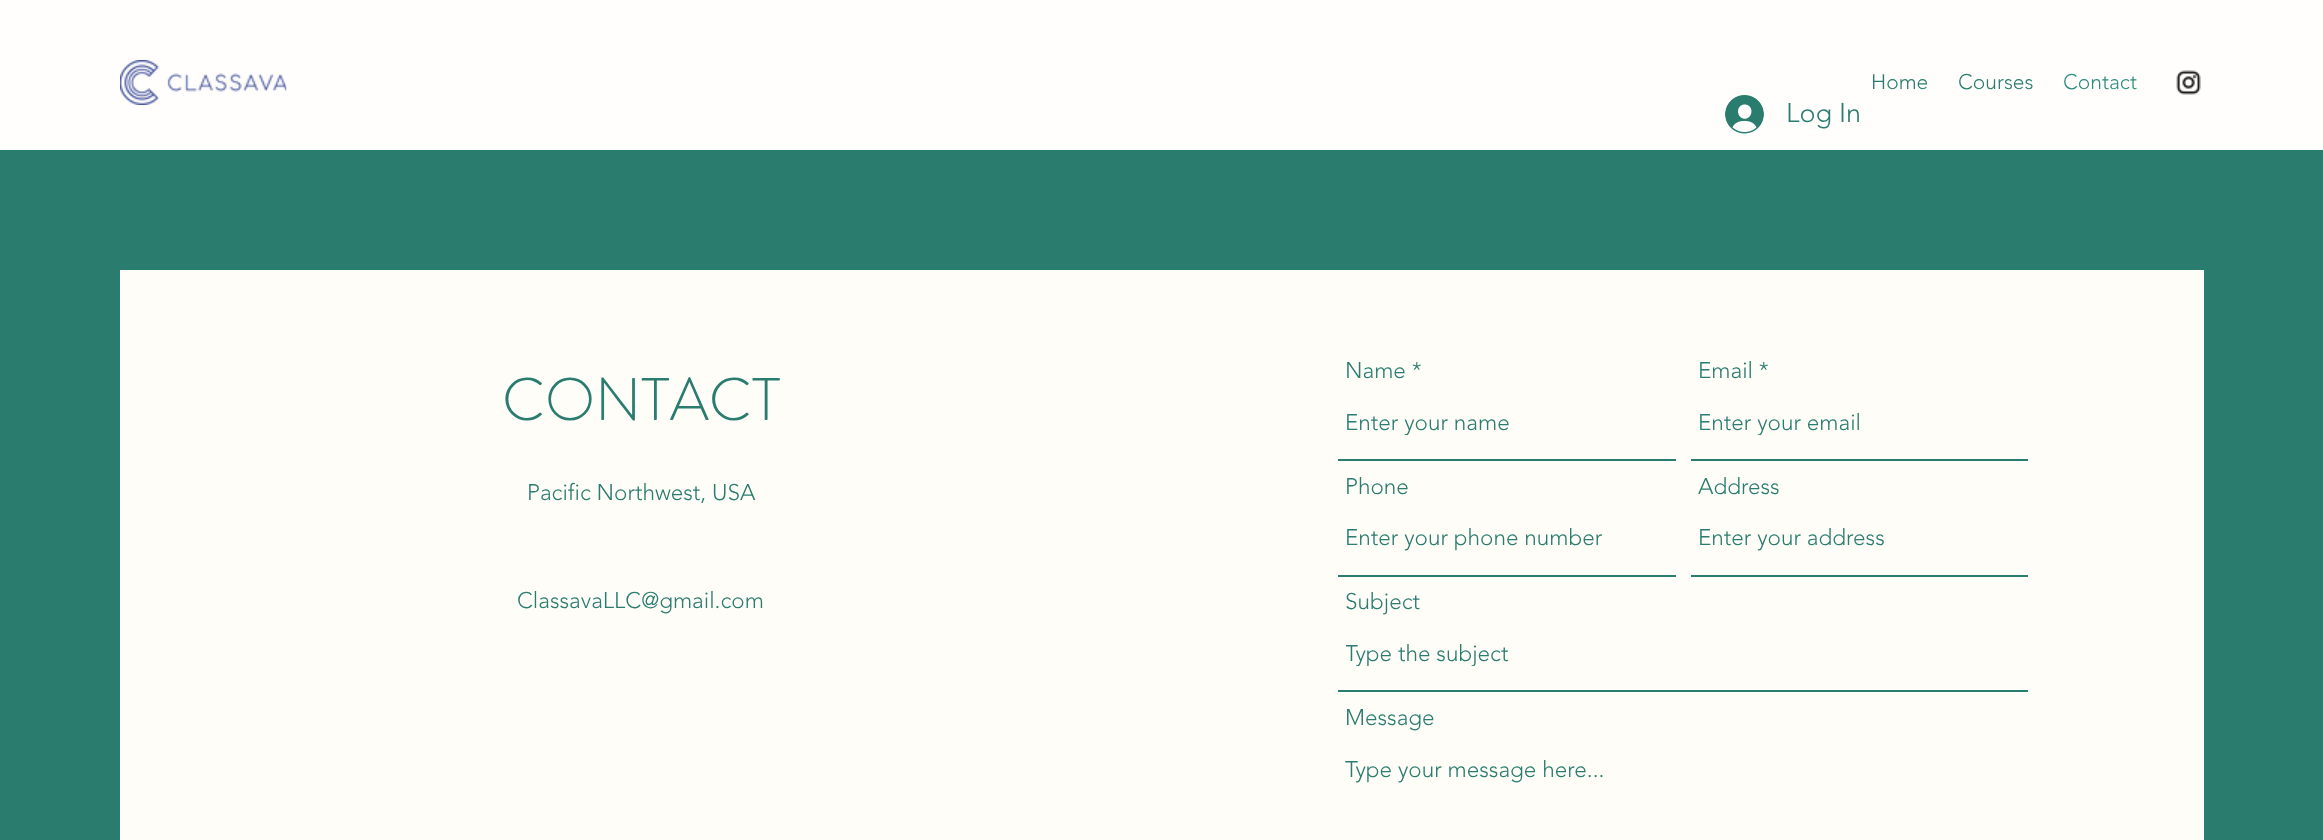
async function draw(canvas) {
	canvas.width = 2323;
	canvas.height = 840;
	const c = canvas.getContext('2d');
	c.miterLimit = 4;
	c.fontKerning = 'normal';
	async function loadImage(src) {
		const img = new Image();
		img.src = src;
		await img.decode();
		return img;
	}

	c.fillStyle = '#fffefc';
	c.fillRect(0, 0, 2323, 840);
	c.drawImage(await loadImage('img1.png'), 120, 60, 167, 45);
	c.font = '300 21px "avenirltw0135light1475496"';
	c.fillStyle = '#2a7c6f';
	c.fillText('Home', 1871, 89);
	c.fillText('Courses', 1958, 89);
	c.fillStyle = '#2c8d7e';
	c.fillText('Contact', 2063, 89);
	c.drawImage(await loadImage('img2.png'), 2176, 70, 25, 25);
	c.drawImage(await loadImage('img3.png'), 1725, 95, 39, 39);
	c.font = '300 27px "avenirltw0135light1475496"';
	c.fillStyle = '#2a7c6f';
	c.fillText('Log In', 1786, 122);
	c.fillRect(0, 150, 2323, 690);
	c.fillStyle = '#fffdf8';
	c.fillRect(120, 270, 2084, 570);
	c.font = '300 60px "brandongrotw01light"';
	c.fillStyle = '#2a7c6f';
	c.fillText('CONTACT', 502, 420);
	c.font = '300 22.5px "avenirltw0135light1475496"';
	for (const [text, x, y] of [
		['Pacific Northwest, USA', 527, 500],
		['ClassavaLLC@gmail.com', 517, 608],
		['Name *', 1345, 378],
	]) {
		c.fillText(text, x, y);
	}
	c.fillRect(1338, 459, 338, 2);
	c.save();
	c.beginPath();
	c.rect(1346, 408, 325, 27);
	c.clip();
	c.fillText('Enter your name', 1345, 430);
	c.restore();
	c.fillText('Email *', 1698, 378);
	c.fillRect(1691, 459, 337, 2);
	c.save();
	c.beginPath();
	c.rect(1698, 408, 326, 27);
	c.clip();
	c.fillText('Enter your email', 1698, 430);
	c.restore();
	c.fillText('Phone', 1345, 494);
	c.fillRect(1338, 575, 338, 2);
	c.fillText('Enter your phone number', 1345, 545);
	c.fillText('Address', 1698, 494);
	c.fillRect(1691, 575, 337, 2);
	c.fillText('Enter your address', 1698, 545);
	c.fillText('Subject', 1345, 609);
	c.fillRect(1338, 690, 690, 2);
	c.save();
	c.beginPath();
	c.rect(1346, 639, 678, 27);
	c.clip();
	c.fillText('Type the subject', 1345, 661);
	c.restore();
	c.fillText('Message', 1345, 725);
	c.fillText('Type your message here...', 1345, 777);
}

draw(document.querySelector('canvas'));
